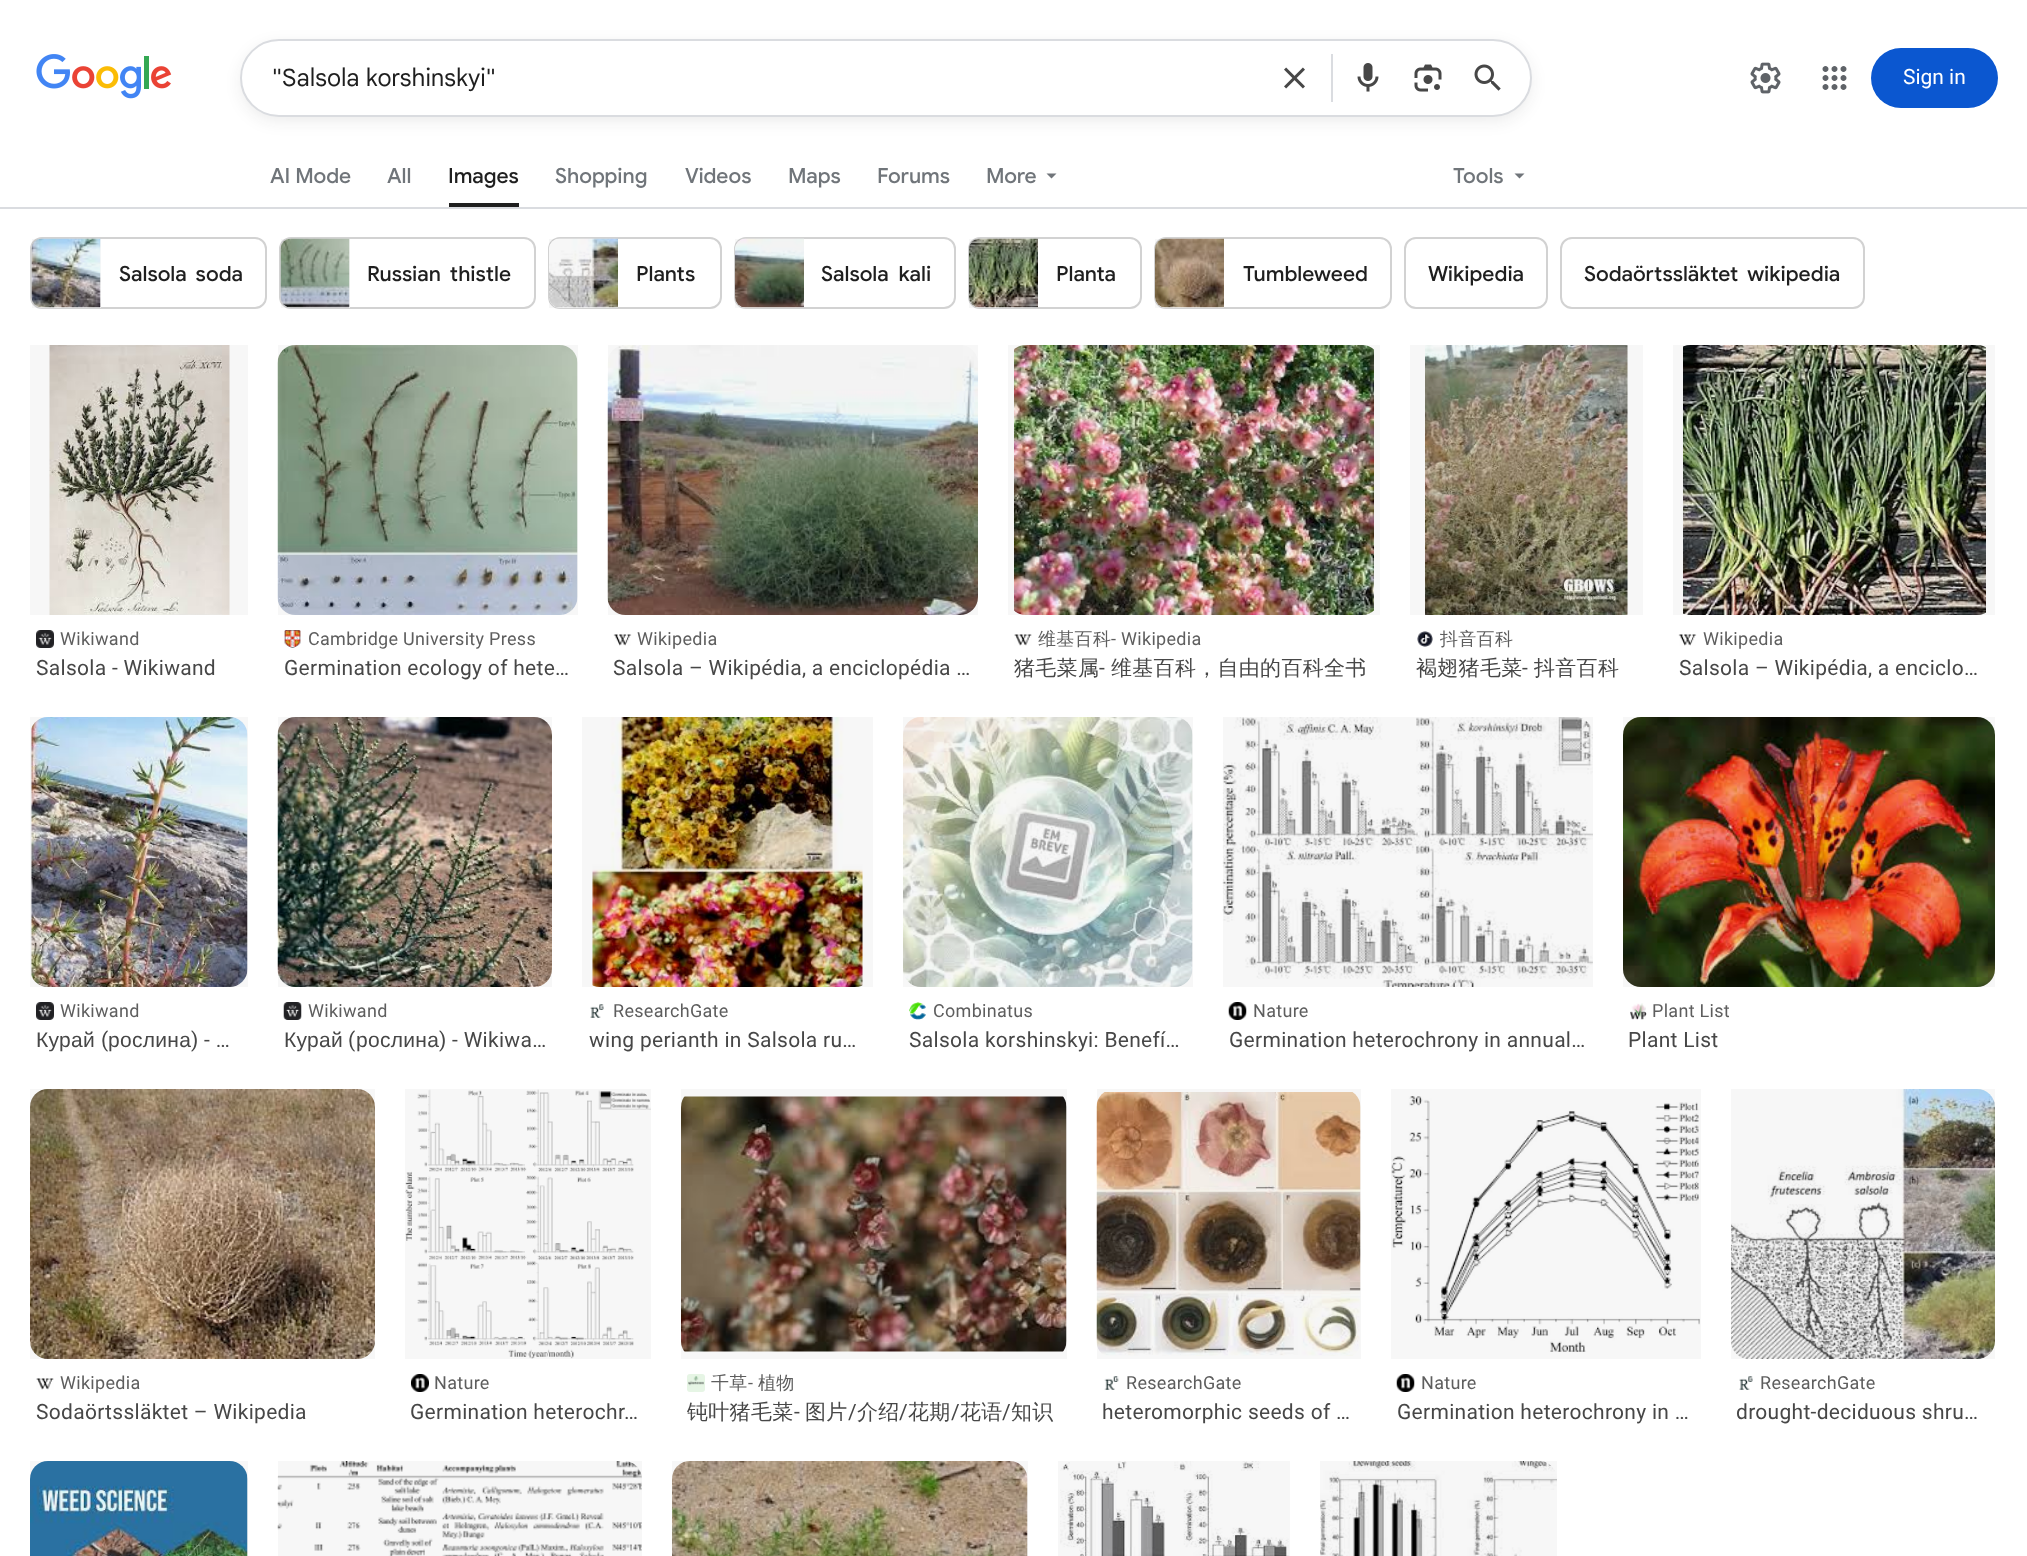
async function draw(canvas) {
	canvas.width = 2027;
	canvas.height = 1556;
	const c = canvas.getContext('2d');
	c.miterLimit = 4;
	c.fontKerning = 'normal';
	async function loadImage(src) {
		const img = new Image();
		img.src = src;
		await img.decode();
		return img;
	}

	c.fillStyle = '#fff';
	c.fillRect(0, 0, 2027, 1556);
	c.drawImage(await loadImage('img1.png'), 36, 54, 136, 45);
	c.fillStyle = '#1f1f1f14';
	c.filter = 'blur(7.5px)';
	c.beginPath();
	c.roundRect(240, 44, 1292, 78, 39);
	c.fill();
	c.filter = 'none';
	c.fillStyle = '#fff';
	c.beginPath();
	c.roundRect(241, 40, 1290, 76, 38);
	c.fill();
	c.strokeStyle = '#dadce0';
	c.lineWidth = 2;
	c.stroke();
	c.font = '24px Google Sans';
	c.fillStyle = '#1f1f1f';
	c.fillText('"Salsola korshinskyi"', 272, 86);
	c.drawImage(await loadImage('img2.png'), 1284, 67, 21, 22);
	c.fillStyle = '#dadce0';
	c.fillRect(1331, 54, 2, 48);
	c.drawImage(await loadImage('img3.png'), 1357, 63, 22, 29);
	c.drawImage(await loadImage('img4.png'), 1414, 64, 28, 28);
	c.drawImage(await loadImage('img5.png'), 1474, 64, 27, 27);
	c.drawImage(await loadImage('img6.png'), 1750, 62, 31, 32);
	c.drawImage(await loadImage('img7.png'), 1822, 66, 25, 24);
	c.fillStyle = '#0b57d0';
	c.beginPath();
	c.roundRect(1871, 48, 127, 60, 30);
	c.fill();
	c.font = '21px Roboto';
	c.fillStyle = '#fff';
	c.fillText('Sign in', 1903, 84);
	c.font = '500 21px Google Sans';
	c.fillStyle = '#70757a';
	c.fillText('AI Mode', 270, 183);
	c.fillText('All', 387, 183);
	c.fillStyle = '#1f1f1f';
	c.fillRect(449, 203, 70, 4);
	c.fillText('Images', 448, 183);
	c.fillStyle = '#70757a';
	for (const [text, x, y] of [
		['Shopping', 555, 183],
		['Videos', 685, 183],
		['Maps', 788, 183],
		['Forums', 877, 183],
		['More', 986, 183],
	]) {
		c.fillText(text, x, y);
	}
	c.beginPath();
	c.moveTo(1046.5, 173.5);
	c.lineTo(1051.5, 178.5);
	c.lineTo(1056.5, 173.5);
	c.closePath();
	c.fill();
	c.fillText('Tools', 1453, 183);
	c.beginPath();
	c.moveTo(1514.5, 173.5);
	c.lineTo(1519.5, 178.5);
	c.lineTo(1524.5, 173.5);
	c.closePath();
	c.fill();
	c.fillStyle = '#dadce0';
	c.fillRect(0, 207, 2027, 2);
	c.beginPath();
	c.roundRect(31, 238, 235, 70, 11);
	c.strokeStyle = '#d2d2d2';
	c.stroke();
	c.fillStyle = '#fff';
	c.beginPath();
	c.roundRect(32, 239, 69, 69, [11, 0, 0, 11]);
	c.fill();
	c.drawImage(await loadImage('img8.png'), 31, 238, 70, 70);
	c.fillStyle = '#00000008';
	c.fillRect(32, 239, 69, 69);
	c.wordSpacing = '4px';
	c.fillStyle = '#1f1f1f';
	c.fillText('Salsola soda', 119, 281);
	c.beginPath();
	c.roundRect(280, 238, 255, 70, 11);
	c.stroke();
	c.fillStyle = '#fff';
	c.beginPath();
	c.roundRect(281, 239, 69, 69, [11, 0, 0, 11]);
	c.fill();
	c.drawImage(await loadImage('img9.png'), 280, 238, 70, 70);
	c.fillStyle = '#00000008';
	c.fillRect(281, 239, 69, 69);
	c.fillStyle = '#1f1f1f';
	c.fillText('Russian thistle', 367, 281);
	c.beginPath();
	c.roundRect(549, 238, 172, 70, 11);
	c.stroke();
	c.fillStyle = '#fff';
	c.beginPath();
	c.roundRect(549, 239, 69, 69, [11, 0, 0, 11]);
	c.fill();
	c.drawImage(await loadImage('img10.png'), 549, 238, 69, 70);
	c.fillStyle = '#00000008';
	c.fillRect(549, 239, 69, 69);
	c.wordSpacing = '0px';
	c.fillStyle = '#1f1f1f';
	c.fillText('Plants', 636, 281);
	c.beginPath();
	c.roundRect(735, 238, 220, 70, 11);
	c.stroke();
	c.fillStyle = '#fff';
	c.beginPath();
	c.roundRect(735, 239, 69, 69, [11, 0, 0, 11]);
	c.fill();
	c.drawImage(await loadImage('img11.png'), 735, 238, 69, 70);
	c.fillStyle = '#00000008';
	c.fillRect(735, 239, 69, 69);
	c.wordSpacing = '5px';
	c.fillStyle = '#1f1f1f';
	c.fillText('Salsola kali', 821, 281);
	c.beginPath();
	c.roundRect(969, 238, 172, 70, 11);
	c.stroke();
	c.fillStyle = '#fff';
	c.beginPath();
	c.roundRect(969, 239, 69, 69, [11, 0, 0, 11]);
	c.fill();
	c.drawImage(await loadImage('img12.png'), 969, 238, 69, 70);
	c.fillStyle = '#00000008';
	c.fillRect(969, 239, 69, 69);
	c.wordSpacing = '0px';
	c.fillStyle = '#1f1f1f';
	c.fillText('Planta', 1056, 281);
	c.beginPath();
	c.roundRect(1155, 238, 236, 70, 11);
	c.stroke();
	c.fillStyle = '#fff';
	c.beginPath();
	c.roundRect(1155, 239, 69, 69, [11, 0, 0, 11]);
	c.fill();
	c.drawImage(await loadImage('img13.png'), 1155, 238, 69, 70);
	c.fillStyle = '#00000008';
	c.fillRect(1155, 239, 69, 69);
	c.fillStyle = '#1f1f1f';
	c.fillText('Tumbleweed', 1243, 281);
	c.beginPath();
	c.roundRect(1405, 238, 142, 70, 11);
	c.stroke();
	c.fillText('Wikipedia', 1428, 281);
	c.beginPath();
	c.roundRect(1561, 238, 303, 70, 11);
	c.stroke();
	c.wordSpacing = '4px';
	c.fillText('Sodaörtssläktet wikipedia', 1584, 281);
	c.drawImage(await loadImage('img14.png'), 49, 345, 181, 270);
	c.fillStyle = '#00000008';
	c.fillRect(30, 345, 218, 270);
	c.drawImage(await loadImage('img15.png'), 36, 630, 18, 18);
	c.letterSpacing = '0.3px';
	c.wordSpacing = '0px';
	c.font = '18px Roboto';
	c.fillStyle = '#5e5e5e';
	c.fillText('Wikiwand', 60, 645);
	c.font = '21px Roboto';
	c.fillStyle = '#474747';
	c.fillText('Salsola - Wikiwand', 36, 675);
	c.drawImage(await loadImage('img16.png'), 277, 345, 301, 270);
	c.fillStyle = '#00000008';
	c.fillRect(278, 345, 300, 270);
	c.drawImage(await loadImage('img17.png'), 284, 630, 17, 18);
	c.font = '18px Roboto';
	c.fillStyle = '#5e5e5e';
	c.fillText('Cambridge University Press', 308, 645);
	c.font = '21px Roboto';
	c.fillStyle = '#474747';
	c.fillText('Germination ecology of hete…', 284, 675);
	c.drawImage(await loadImage('img18.png'), 607, 345, 371, 270);
	c.fillStyle = '#00000008';
	c.fillRect(608, 345, 370, 270);
	c.drawImage(await loadImage('img19.png'), 613, 634, 19, 12);
	c.font = '18px Roboto';
	c.fillStyle = '#5e5e5e';
	c.fillText('Wikipedia', 637, 645);
	c.font = '21px Roboto';
	c.fillStyle = '#474747';
	c.fillText('Salsola – Wikipédia, a enciclopédia …', 613, 675);
	c.drawImage(await loadImage('img20.png'), 1014, 345, 360, 270);
	c.fillStyle = '#00000008';
	c.fillRect(1008, 345, 372, 270);
	c.drawImage(await loadImage('img21.png'), 1014, 634, 18, 12);
	c.font = '500 18px WenQuanYi Zen Hei';
	c.fillStyle = '#5e5e5e';
	c.fillText('维基百科', 1038, 645);
	c.font = '18px Roboto';
	c.fillText('- Wikipedia', 1111, 645);
	c.font = '500 21px WenQuanYi Zen Hei';
	c.fillStyle = '#474747';
	c.fillText('猪毛菜属', 1014, 675);
	c.font = '21px Roboto';
	c.fillText('-', 1099, 675);
	c.font = '500 21px WenQuanYi Zen Hei';
	c.fillText('维基百科，自由的百科全书', 1111, 675);
	c.drawImage(await loadImage('img22.png'), 1425, 345, 203, 270);
	c.fillStyle = '#00000008';
	c.fillRect(1410, 345, 233, 270);
	c.drawImage(await loadImage('img23.png'), 1417, 631, 16, 16);
	c.font = '500 18px WenQuanYi Zen Hei';
	c.fillStyle = '#5e5e5e';
	c.fillText('抖音百科', 1440, 645);
	c.font = '500 21px WenQuanYi Zen Hei';
	c.fillStyle = '#474747';
	c.fillText('褐翅猪毛菜', 1416, 675);
	c.font = '21px Roboto';
	c.fillText('-', 1522, 675);
	c.font = '500 21px WenQuanYi Zen Hei';
	c.fillText('抖音百科', 1534, 675);
	c.drawImage(await loadImage('img24.png'), 1683, 345, 303, 270);
	c.fillStyle = '#00000008';
	c.fillRect(1673, 345, 322, 270);
	c.drawImage(await loadImage('img25.png'), 1678, 634, 19, 12);
	c.font = '18px Roboto';
	c.fillStyle = '#5e5e5e';
	c.fillText('Wikipedia', 1703, 645);
	c.font = '21px Roboto';
	c.fillStyle = '#474747';
	c.fillText('Salsola – Wikipédia, a enciclo…', 1679, 675);
	c.drawImage(await loadImage('img26.png'), 31, 717, 217, 270);
	c.fillStyle = '#00000008';
	c.fillRect(30, 717, 218, 270);
	c.drawImage(await loadImage('img15.png'), 36, 1002, 18, 18);
	c.font = '18px Roboto';
	c.fillStyle = '#5e5e5e';
	c.fillText('Wikiwand', 60, 1017);
	c.font = '21px Liberation Sans';
	c.fillStyle = '#474747';
	c.fillText('Курай', 36, 1047);
	c.font = '21px Roboto';
	c.fillText('(', 101, 1047);
	c.font = '21px Liberation Sans';
	c.fillText('рослина', 108, 1047);
	c.font = '21px Roboto';
	c.fillText(') - …', 191, 1047);
	c.drawImage(await loadImage('img27.png'), 277, 717, 275, 270);
	c.fillStyle = '#00000008';
	c.fillRect(278, 717, 274, 270);
	c.drawImage(await loadImage('img28.png'), 283, 1002, 19, 18);
	c.font = '18px Roboto';
	c.fillStyle = '#5e5e5e';
	c.fillText('Wikiwand', 308, 1017);
	c.font = '21px Liberation Sans';
	c.fillStyle = '#474747';
	c.fillText('Курай', 284, 1047);
	c.font = '21px Roboto';
	c.fillText('(', 348, 1047);
	c.font = '21px Liberation Sans';
	c.fillText('рослина', 356, 1047);
	c.font = '21px Roboto';
	c.fillText(') - Wikiwa…', 439, 1047);
	c.drawImage(await loadImage('img29.png'), 592, 717, 271, 270);
	c.fillStyle = '#00000008';
	c.fillRect(582, 717, 291, 270);
	c.drawImage(await loadImage('img30.png'), 590, 1004, 14, 14);
	c.font = '18px Roboto';
	c.fillStyle = '#5e5e5e';
	c.fillText('ResearchGate', 613, 1017);
	c.font = '21px Roboto';
	c.fillStyle = '#474747';
	c.fillText('wing perianth in Salsola ru…', 589, 1047);
	c.drawImage(await loadImage('img31.png'), 903, 717, 290, 270);
	c.fillStyle = '#00000008';
	c.fillRect(903, 717, 290, 270);
	c.drawImage(await loadImage('img32.png'), 909, 1002, 17, 18);
	c.font = '18px Roboto';
	c.fillStyle = '#5e5e5e';
	c.fillText('Combinatus', 933, 1017);
	c.font = '21px Roboto';
	c.fillStyle = '#474747';
	c.fillText('Salsola korshinskyi: Benefí…', 909, 1047);
	c.drawImage(await loadImage('img33.png'), 1222, 717, 371, 270);
	c.fillStyle = '#00000008';
	c.fillRect(1223, 717, 370, 270);
	c.drawImage(await loadImage('img34.png'), 1228, 1002, 19, 18);
	c.font = '18px Roboto';
	c.fillStyle = '#5e5e5e';
	c.fillText('Nature', 1253, 1017);
	c.font = '21px Roboto';
	c.fillStyle = '#474747';
	c.fillText('Germination heterochrony in annual…', 1229, 1047);
	c.drawImage(await loadImage('img35.png'), 1623, 717, 372, 270);
	c.fillStyle = '#00000008';
	c.fillRect(1623, 717, 372, 270);
	c.drawImage(await loadImage('img36.png'), 1630, 1003, 17, 17);
	c.font = '18px Roboto';
	c.fillStyle = '#5e5e5e';
	c.fillText('Plant List', 1652, 1017);
	c.font = '21px Roboto';
	c.fillStyle = '#474747';
	c.fillText('Plant List', 1628, 1047);
	c.drawImage(await loadImage('img37.png'), 30, 1089, 345, 270);
	c.fillStyle = '#00000008';
	c.fillRect(30, 1089, 345, 270);
	c.drawImage(await loadImage('img21.png'), 36, 1378, 18, 12);
	c.font = '18px Roboto';
	c.fillStyle = '#5e5e5e';
	c.fillText('Wikipedia', 60, 1389);
	c.font = '21px Roboto';
	c.fillStyle = '#474747';
	c.fillText('Sodaörtssläktet – Wikipedia', 36, 1419);
	c.drawImage(await loadImage('img38.png'), 405, 1089, 246, 270);
	c.fillStyle = '#00000008';
	c.fillRect(405, 1089, 246, 270);
	c.drawImage(await loadImage('img39.png'), 411, 1374, 18, 18);
	c.font = '18px Roboto';
	c.fillStyle = '#5e5e5e';
	c.fillText('Nature', 434, 1389);
	c.font = '21px Roboto';
	c.fillStyle = '#474747';
	c.fillText('Germination heterochr…', 410, 1419);
	c.drawImage(await loadImage('img40.png'), 681, 1096, 386, 256);
	c.fillStyle = '#00000008';
	c.fillRect(681, 1089, 386, 270);
	c.drawImage(await loadImage('img41.png'), 687, 1374, 18, 18);
	c.font = '500 18px WenQuanYi Zen Hei';
	c.fillStyle = '#5e5e5e';
	c.fillText('千草', 711, 1389);
	c.font = '18px Roboto';
	c.fillText('-', 748, 1389);
	c.font = '500 18px WenQuanYi Zen Hei';
	c.fillText('植物', 758, 1389);
	c.font = '500 21px WenQuanYi Zen Hei';
	c.fillStyle = '#474747';
	c.fillText('钝叶猪毛菜', 687, 1419);
	c.font = '21px Roboto';
	c.fillText('-', 794, 1419);
	c.font = '500 21px WenQuanYi Zen Hei';
	c.fillText('图片', 805, 1419);
	c.font = '21px Roboto';
	c.fillText('/', 848, 1419);
	c.font = '500 21px WenQuanYi Zen Hei';
	c.fillText('介绍', 857, 1419);
	c.font = '21px Roboto';
	c.fillText('/', 899, 1419);
	c.font = '500 21px WenQuanYi Zen Hei';
	c.fillText('花期', 908, 1419);
	c.font = '21px Roboto';
	c.fillText('/', 951, 1419);
	c.font = '500 21px WenQuanYi Zen Hei';
	c.fillText('花语', 960, 1419);
	c.font = '21px Roboto';
	c.fillText('/', 1002, 1419);
	c.font = '500 21px WenQuanYi Zen Hei';
	c.fillText('知识', 1011, 1419);
	c.drawImage(await loadImage('img42.png'), 1096, 1092, 265, 264);
	c.fillStyle = '#00000008';
	c.fillRect(1097, 1089, 264, 270);
	c.drawImage(await loadImage('img43.png'), 1104, 1376, 15, 14);
	c.font = '18px Roboto';
	c.fillStyle = '#5e5e5e';
	c.fillText('ResearchGate', 1126, 1389);
	c.font = '21px Roboto';
	c.fillStyle = '#474747';
	c.fillText('heteromorphic seeds of …', 1102, 1419);
	c.drawImage(await loadImage('img44.png'), 1391, 1096, 309, 256);
	c.fillStyle = '#00000008';
	c.fillRect(1391, 1089, 310, 270);
	c.drawImage(await loadImage('img34.png'), 1396, 1374, 19, 18);
	c.font = '18px Roboto';
	c.fillStyle = '#5e5e5e';
	c.fillText('Nature', 1421, 1389);
	c.font = '21px Roboto';
	c.fillStyle = '#474747';
	c.fillText('Germination heterochrony in …', 1397, 1419);
	c.drawImage(await loadImage('img45.png'), 1731, 1089, 264, 270);
	c.fillStyle = '#00000008';
	c.fillRect(1731, 1089, 264, 270);
	c.drawImage(await loadImage('img46.png'), 1739, 1376, 14, 14);
	c.font = '18px Roboto';
	c.fillStyle = '#5e5e5e';
	c.fillText('ResearchGate', 1760, 1389);
	c.font = '21px Roboto';
	c.fillStyle = '#474747';
	c.fillText('drought-deciduous shru…', 1736, 1419);
	c.drawImage(await loadImage('img47.png'), 30, 1461, 218, 95);
	c.fillStyle = '#00000008';
	c.fillRect(30, 1461, 218, 95);
	c.drawImage(await loadImage('img48.png'), 277, 1461, 365, 95);
	c.fillRect(278, 1461, 364, 95);
	c.drawImage(await loadImage('img49.png'), 672, 1461, 356, 95);
	c.fillRect(672, 1461, 356, 95);
	c.drawImage(await loadImage('img50.png'), 1060, 1461, 229, 95);
	c.fillRect(1058, 1461, 232, 95);
	c.drawImage(await loadImage('img51.png'), 1320, 1461, 237, 95);
	c.fillRect(1320, 1461, 237, 95);
}

draw(document.querySelector('canvas'));
